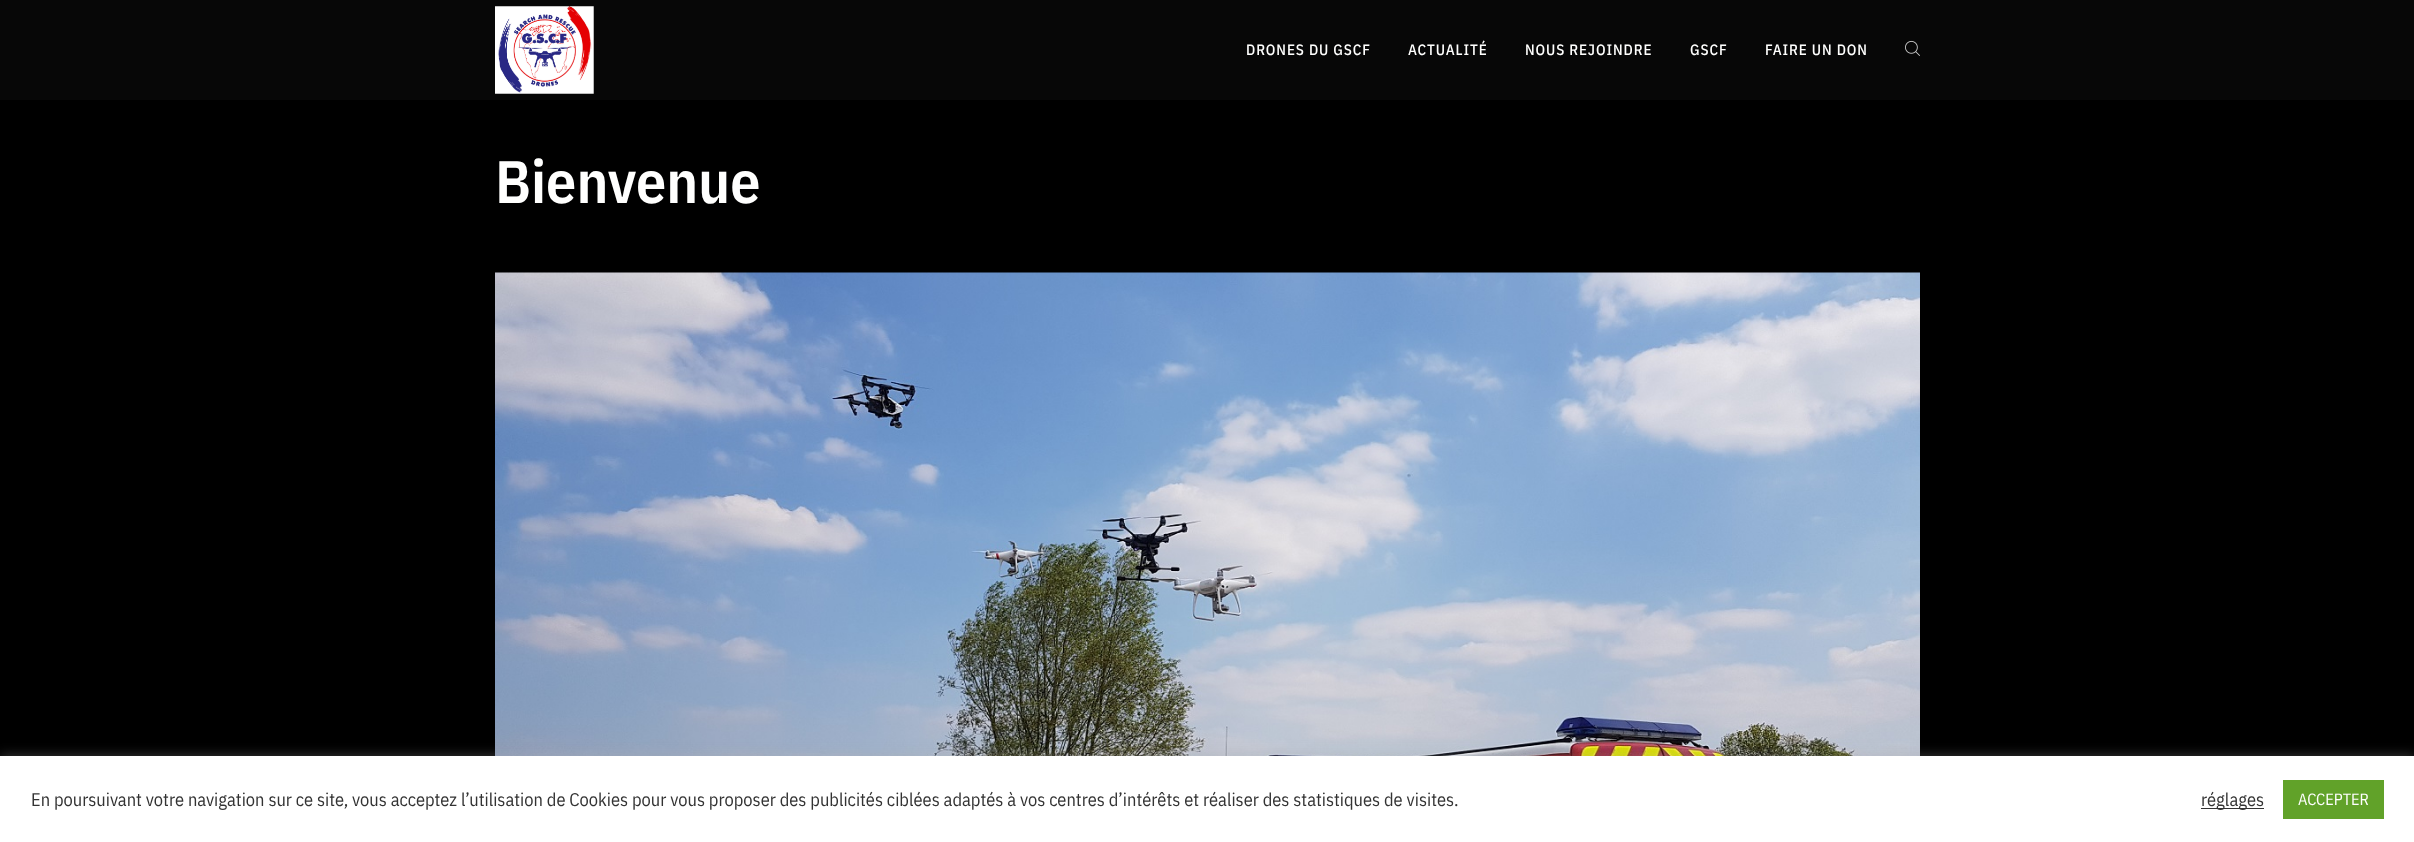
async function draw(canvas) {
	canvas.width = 2414;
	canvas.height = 842;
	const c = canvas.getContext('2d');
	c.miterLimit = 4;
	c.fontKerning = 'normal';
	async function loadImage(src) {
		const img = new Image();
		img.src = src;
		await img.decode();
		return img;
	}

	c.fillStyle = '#000';
	c.fillRect(0, 0, 2414, 842);
	c.fillStyle = '#070707';
	c.fillRect(0, 0, 2414, 100);
	c.drawImage(await loadImage('img1.png'), 495, 6, 99, 88);
	c.letterSpacing = '0.9px';
	c.font = '500 15px IBM Plex Sans Condensed';
	c.fillStyle = '#fffffe';
	for (const [text, x, y] of [
		['DRONES DU GSCF', 1246, 55],
		['ACTUALITÉ', 1408, 55],
		['NOUS REJOINDRE', 1525, 55],
		['GSCF', 1690, 55],
		['FAIRE UN DON', 1765, 55],
	]) {
		c.fillText(text, x, y);
	}
	c.drawImage(await loadImage('img2.png'), 1905, 40, 15, 16);
	c.letterSpacing = '0px';
	c.font = '600 60px IBM Plex Sans Condensed';
	c.fillText('Bienvenue', 495, 203);
	c.drawImage(await loadImage('img3.png'), 495, 272, 1425, 484);
	c.fillStyle = '#acabab4d';
	c.filter = 'blur(6px)';
	c.beginPath();
	c.rect(0, 755, 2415, 86);
	c.fill();
	c.filter = 'none';
	c.fillStyle = '#fff';
	c.fillRect(0, 756, 2414, 86);
	c.font = '18.33px IBM Plex Sans Condensed';
	c.fillStyle = '#333';
	c.fillText('En poursuivant votre navigation sur ce site, vous acceptez l’utilisation de Cookies pour vous proposer des publicités ciblées adaptés à vos centres d’intérêts et réaliser des statistiques de visites.', 31, 806);
	c.fillRect(2201, 808, 63, 1);
	c.fillText('réglages', 2201, 806);
	c.fillStyle = '#61a229';
	c.fillRect(2283, 780, 101, 39);
	c.font = '16.25px IBM Plex Sans Condensed';
	c.fillStyle = '#fffffe';
	c.fillText('ACCEPTER', 2298, 805);
}

draw(document.querySelector('canvas'));
